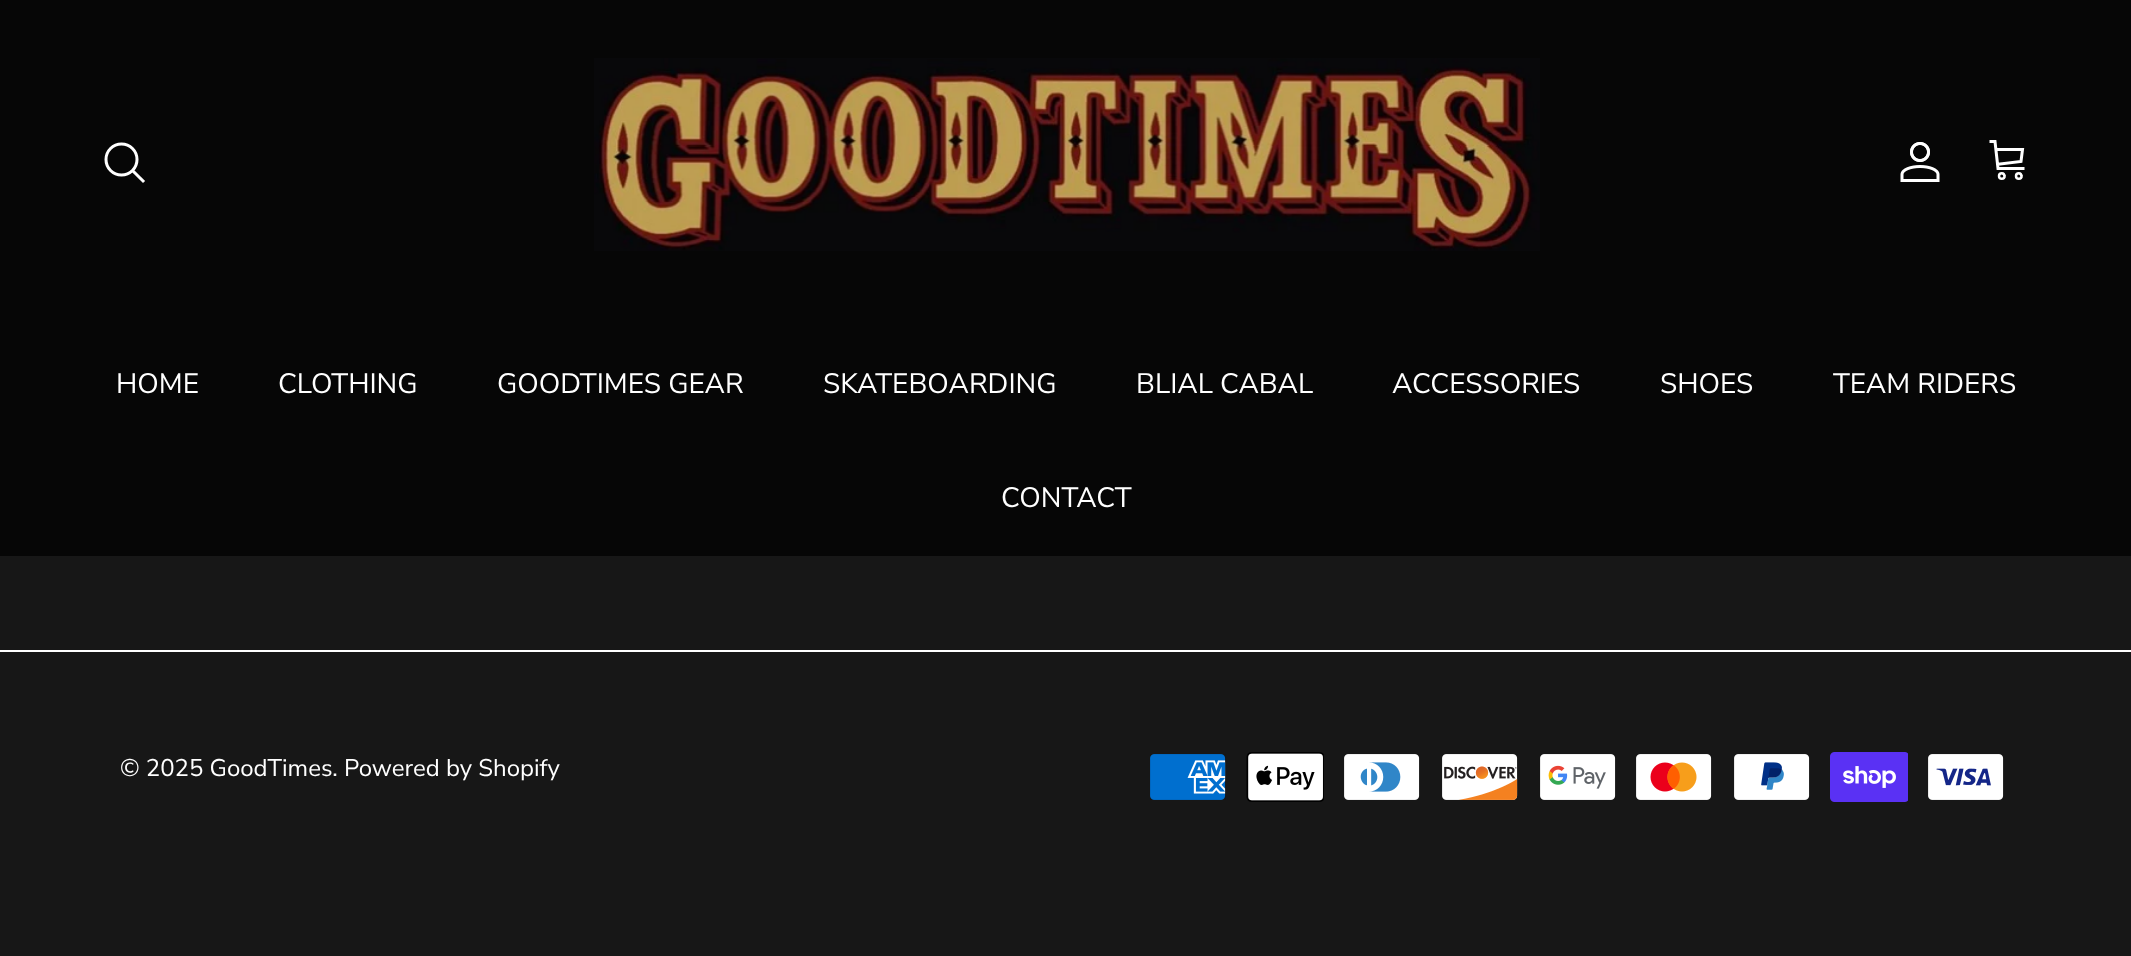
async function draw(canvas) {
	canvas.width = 2131;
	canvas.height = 956;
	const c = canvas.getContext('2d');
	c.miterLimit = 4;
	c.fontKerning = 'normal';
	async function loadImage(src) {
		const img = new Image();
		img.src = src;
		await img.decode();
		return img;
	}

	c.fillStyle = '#171717';
	c.fillRect(0, 0, 2131, 956);
	c.fillStyle = '#060606';
	c.fillRect(0, 0, 2131, 556);
	c.beginPath();
	c.arc(121.5, 159.5, 15.5, 0, 2 * Math.PI);
	c.strokeStyle = '#fff';
	c.lineWidth = 3;
	c.stroke();
	c.beginPath();
	c.moveTo(134, 172);
	c.lineTo(143, 181);
	c.lineCap = 'square';
	c.stroke();
	c.drawImage(await loadImage('img1.png'), 594, 58, 946, 193);
	c.drawImage(await loadImage('img2.png'), 1900, 142, 40, 40);
	c.beginPath();
	c.moveTo(1991, 141.5);
	c.lineTo(1995, 141.5);
	c.lineTo(1998, 168.5);
	c.lineTo(2023, 168.5);
	c.moveTo(1996.5, 149.5);
	c.lineTo(2022.5, 149.5);
	c.lineTo(2021, 161.5);
	c.lineTo(1999.5, 164);
	c.stroke();
	c.beginPath();
	c.arc(2001.8, 176, 2.8, 0, 2 * Math.PI);
	c.lineWidth = 2.5;
	c.stroke();
	c.beginPath();
	c.arc(2018.8, 176, 2.8, 0, 2 * Math.PI);
	c.stroke();
	c.font = '28px Nunito Sans';
	c.fillStyle = '#fff';
	for (const [text, x, y] of [
		['HOME', 116, 393],
		['CLOTHING', 278, 393],
		['GOODTIMES GEAR', 497, 393],
		['SKATEBOARDING', 823, 393],
		['BLIAL CABAL', 1136, 393],
		['ACCESSORIES', 1392, 393],
		['SHOES', 1660, 393],
		['TEAM RIDERS', 1833, 393],
		['CONTACT', 1001, 507],
	]) {
		c.fillText(text, x, y);
	}
	c.fillRect(0, 650, 2131, 2);
	c.font = '24px Nunito Sans';
	c.fillText('© 2025 GoodTimes. Powered by Shopify', 120, 776);
	c.drawImage(await loadImage('img3.png'), 1150, 754, 76, 46);
	c.drawImage(await loadImage('img4.png'), 1246, 752, 78, 50);
	c.drawImage(await loadImage('img5.png'), 1344, 754, 76, 46);
	c.drawImage(await loadImage('img6.png'), 1442, 754, 76, 46);
	c.drawImage(await loadImage('img7.png'), 1540, 754, 76, 46);
	c.drawImage(await loadImage('img8.png'), 1636, 754, 76, 46);
	c.drawImage(await loadImage('img9.png'), 1734, 754, 76, 46);
	c.drawImage(await loadImage('img10.png'), 1830, 752, 78, 50);
	c.drawImage(await loadImage('img11.png'), 1928, 754, 76, 46);
}

draw(document.querySelector('canvas'));
